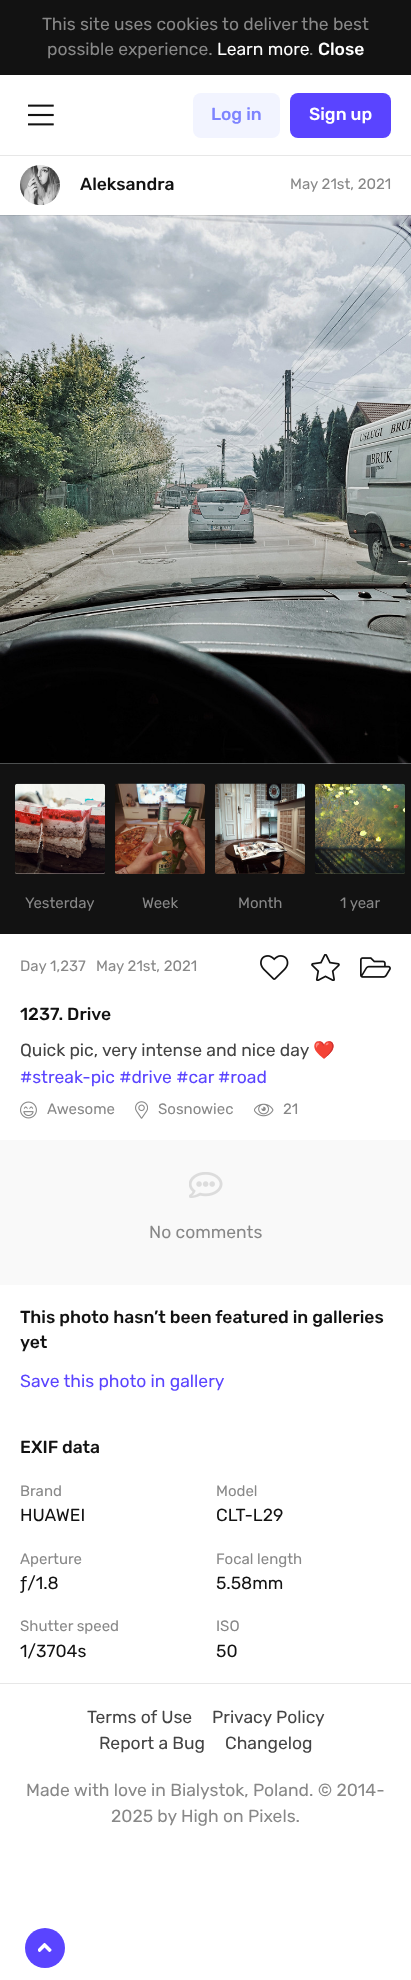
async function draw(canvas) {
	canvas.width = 411;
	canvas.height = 1980;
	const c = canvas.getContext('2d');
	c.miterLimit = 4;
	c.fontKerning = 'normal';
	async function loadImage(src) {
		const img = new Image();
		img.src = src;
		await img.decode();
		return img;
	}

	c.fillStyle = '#fff';
	c.fillRect(0, 0, 411, 1980);
	c.fillStyle = '#121212';
	c.fillRect(0, 0, 411, 75);
	c.font = '17.5px Rubik';
	c.fillStyle = '#888';
	c.fillText('This site uses cookies to deliver the best', 42, 30);
	c.fillText('possible experience.', 47, 55);
	c.fillStyle = '#fff';
	c.fillText('Learn more', 217, 55);
	c.fillStyle = '#888';
	c.fillText('.', 309, 55);
	c.font = '500 17.5px Rubik';
	c.fillStyle = '#fff';
	c.fillText('Close', 318, 55);
	c.fillStyle = '#e7e7e7';
	c.fillRect(0, 155, 411, 1);
	c.drawImage(await loadImage('img1.png'), 28, 104, 26, 22);
	c.fillStyle = '#f2f4ff';
	c.beginPath();
	c.roundRect(193, 93, 87, 45, 8);
	c.fill();
	c.fillStyle = '#7e84ff';
	c.fillText('Log in', 211, 120);
	c.fillStyle = '#5a44ff';
	c.beginPath();
	c.roundRect(290, 93, 101, 45, 8);
	c.fill();
	c.fillStyle = '#fff';
	c.fillText('Sign up', 309, 120);
	c.fillStyle = '#b1b8b8';
	c.fillRect(0, 763, 411, 1);
	c.drawImage(await loadImage('img3.png'), 0, 215, 411, 549);
	c.fillStyle = '#1212121a';
	c.fillRect(0, 215, 411, 1);
	c.fillStyle = '#f5f5f5';
	c.beginPath();
	c.arc(40, 185, 20, 0, 2 * Math.PI);
	c.fill();
	c.drawImage(await loadImage('img2.png'), 20, 165, 40, 40);
	c.fillStyle = '#121212';
	c.fillText('Aleksandra', 80, 190);
	c.font = '15px Rubik';
	c.fillStyle = '#888';
	c.fillText('May 21st, 2021', 290, 189);
	c.fillStyle = '#121212';
	c.fillRect(0, 764, 411, 170);
	c.fillStyle = '#c4b8b2';
	c.beginPath();
	c.roundRect(15, 784, 90, 90, 2.5);
	c.fill();
	c.drawImage(await loadImage('img4.png'), 15, 783, 90, 91);
	c.fillStyle = '#888';
	c.fillText('Yesterday', 25, 908);
	c.fillStyle = '#704e3d';
	c.beginPath();
	c.roundRect(115, 784, 90, 90, 2.5);
	c.fill();
	c.drawImage(await loadImage('img5.png'), 115, 783, 90, 91);
	c.fillStyle = '#888';
	c.fillText('Week', 142, 908);
	c.fillStyle = '#54453c';
	c.beginPath();
	c.roundRect(215, 784, 90, 90, 2.5);
	c.fill();
	c.drawImage(await loadImage('img6.png'), 215, 783, 90, 91);
	c.fillStyle = '#888';
	c.fillText('Month', 238, 908);
	c.fillStyle = '#596044';
	c.beginPath();
	c.roundRect(315, 784, 90, 90, 2.5);
	c.fill();
	c.drawImage(await loadImage('img7.png'), 315, 783, 90, 91);
	c.fillStyle = '#888';
	for (const [text, x, y] of [
		['1 year', 340, 908],
		['Day 1,237', 20, 971],
		['May 21st, 2021', 96, 971],
	]) {
		c.fillText(text, x, y);
	}
	c.drawImage(await loadImage('img8.png'), 260, 955, 29, 25);
	c.drawImage(await loadImage('img9.png'), 311, 954, 29, 27);
	c.drawImage(await loadImage('img10.png'), 360, 957, 31, 21);
	c.font = '500 17.5px Rubik';
	c.fillStyle = '#121212';
	c.fillText('1237. Drive', 20, 1020);
	c.font = '17.5px Rubik';
	c.fillStyle = '#444';
	c.fillText('Quick pic, very intense and nice day', 20, 1056);
	c.font = '17.5px Noto Color Emoji';
	c.fillText('❤️', 313, 1056);
	c.font = '17.5px Rubik';
	c.fillStyle = '#5a44ff';
	c.fillText('#streak-pic #drive #car', 20, 1083);
	c.fillText('#road', 218, 1083);
	c.drawImage(await loadImage('img11.png'), 20, 1101, 17, 18);
	c.font = '15px Rubik';
	c.fillStyle = '#888';
	c.fillText('Awesome', 47, 1114);
	c.drawImage(await loadImage('img12.png'), 135, 1101, 13, 18);
	c.fillText('Sosnowiec', 158, 1114);
	c.drawImage(await loadImage('img13.png'), 254, 1103, 20, 14);
	c.fillText('21', 283, 1114);
	c.fillStyle = '#f9f9f9';
	c.fillRect(0, 1140, 411, 145);
	c.drawImage(await loadImage('img14.png'), 189, 1172, 34, 26);
	c.font = '17.5px Rubik';
	c.fillStyle = '#888';
	c.fillText('No comments', 149, 1238);
	c.font = '500 17.5px Rubik';
	c.fillStyle = '#121212';
	c.fillText('This photo hasn’t been featured in galleries', 20, 1323);
	c.fillText('yet', 20, 1348);
	c.font = '17.5px Rubik';
	c.fillStyle = '#5a44ff';
	c.fillText('Save this photo in gallery', 20, 1387);
	c.font = '500 17.5px Rubik';
	c.fillStyle = '#121212';
	c.fillText('EXIF data', 20, 1453);
	c.font = '15px Rubik';
	c.fillStyle = '#888';
	c.fillText('Brand', 20, 1496);
	c.font = '17.5px Rubik';
	c.fillStyle = '#121212';
	c.fillText('HUAWEI', 20, 1521);
	c.font = '15px Rubik';
	c.fillStyle = '#888';
	c.fillText('Model', 216, 1496);
	c.font = '17.5px Rubik';
	c.fillStyle = '#121212';
	c.fillText('CLT-L29', 216, 1521);
	c.font = '15px Rubik';
	c.fillStyle = '#888';
	c.fillText('Aperture', 20, 1564);
	c.font = '17.5px Rubik';
	c.fillStyle = '#121212';
	c.fillText('ƒ/1.8', 20, 1589);
	c.font = '15px Rubik';
	c.fillStyle = '#888';
	c.fillText('Focal length', 216, 1564);
	c.font = '17.5px Rubik';
	c.fillStyle = '#121212';
	c.fillText('5.58mm', 216, 1589);
	c.font = '15px Rubik';
	c.fillStyle = '#888';
	c.fillText('Shutter speed', 20, 1631);
	c.font = '17.5px Rubik';
	c.fillStyle = '#121212';
	c.fillText('1/3704s', 20, 1657);
	c.font = '15px Rubik';
	c.fillStyle = '#888';
	c.fillText('ISO', 216, 1631);
	c.font = '17.5px Rubik';
	c.fillStyle = '#121212';
	c.fillText('50', 216, 1657);
	c.fillStyle = '#e7e7e7';
	c.fillRect(0, 1683, 411, 1);
	c.fillStyle = '#444';
	for (const [text, x, y] of [
		['Terms of Use', 87, 1723],
		['Privacy Policy', 212, 1723],
		['Report a Bug', 99, 1749],
		['Changelog', 225, 1749],
	]) {
		c.fillText(text, x, y);
	}
	c.fillStyle = '#888';
	c.fillText('Made with love in Bialystok, Poland. © 2014-', 26, 1796);
	c.fillText('2025 by High on Pixels.', 111, 1822);
	c.fillStyle = '#5a44ff';
	c.beginPath();
	c.arc(45, 1948, 20, 0, 2 * Math.PI);
	c.fill();
	c.drawImage(await loadImage('img15.png'), 38, 1943, 14, 9);
}

draw(document.querySelector('canvas'));
